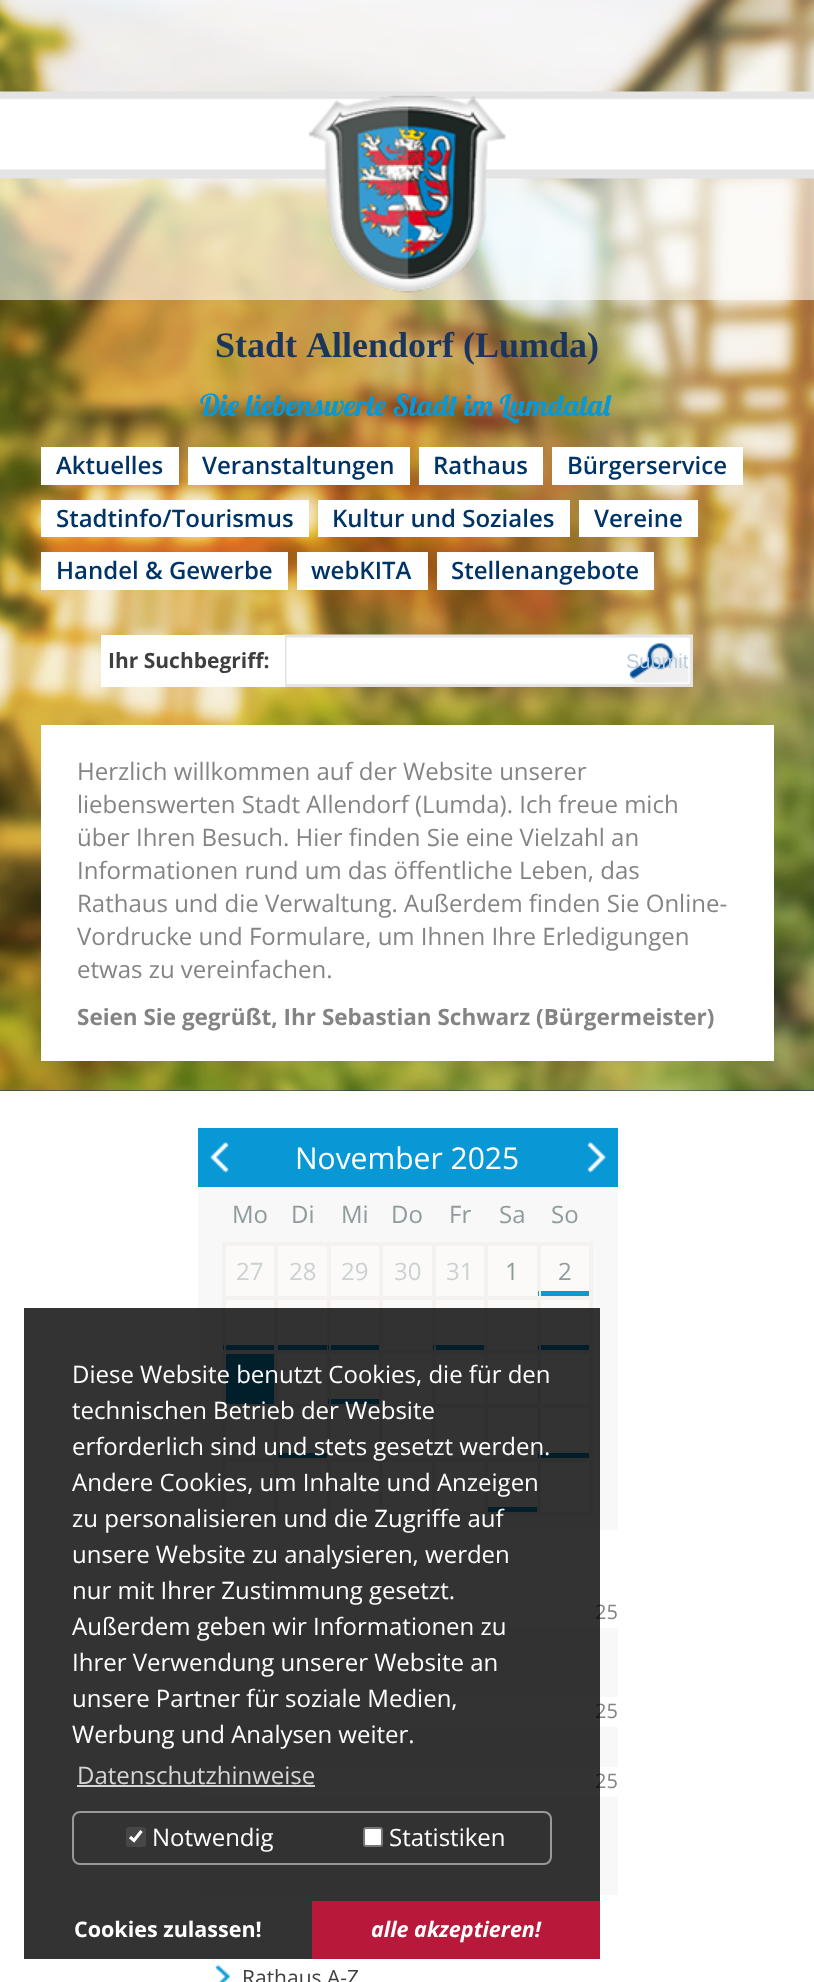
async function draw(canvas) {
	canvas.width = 814;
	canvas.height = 1982;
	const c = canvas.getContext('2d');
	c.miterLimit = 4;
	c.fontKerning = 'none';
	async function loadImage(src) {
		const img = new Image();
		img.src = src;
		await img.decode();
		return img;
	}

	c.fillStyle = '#fff';
	c.fillRect(0, 0, 814, 1982);
	c.fillStyle = '#003466';
	c.fillRect(0, 1090, 814, 1);
	c.drawImage(await loadImage('img1.png'), 0, 0, 814, 1091);
	c.drawImage(await loadImage('img2.png'), 0, 91, 814, 209);
	c.drawImage(await loadImage('img3.png'), 308, 95, 198, 198);
	c.font = 'bold 36px Liberation Serif';
	c.fillStyle = '#1b355d';
	c.fillText('Stadt Allendorf (Lumda)', 215, 357);
	c.font = '30px Lobster';
	c.fillStyle = '#0998d6';
	c.fillText('Die liebenswerte Stadt im Lumdatal', 200, 416);
	c.fillStyle = '#fff';
	c.fillRect(41, 447, 138, 38);
	c.font = '600 24px Open Sans';
	c.fillStyle = '#003466';
	c.fillText('Aktuelles', 56, 474);
	c.fillStyle = '#fff';
	c.fillRect(188, 447, 222, 38);
	c.fillStyle = '#003466';
	c.fillText('Veranstaltungen', 202, 474);
	c.fillStyle = '#fff';
	c.fillRect(419, 447, 124, 38);
	c.fillStyle = '#003466';
	c.fillText('Rathaus', 433, 474);
	c.fillStyle = '#fff';
	c.fillRect(552, 447, 191, 38);
	c.fillStyle = '#003466';
	c.fillText('Bürgerservice', 567, 474);
	c.fillStyle = '#fff';
	c.fillRect(41, 500, 268, 37);
	c.fillStyle = '#003466';
	c.fillText('Stadtinfo/Tourismus', 56, 527);
	c.fillStyle = '#fff';
	c.fillRect(318, 500, 252, 37);
	c.fillStyle = '#003466';
	c.fillText('Kultur und Soziales', 332, 527);
	c.fillStyle = '#fff';
	c.fillRect(579, 500, 119, 37);
	c.fillStyle = '#003466';
	c.fillText('Vereine', 594, 527);
	c.fillStyle = '#fff';
	c.fillRect(41, 552, 247, 38);
	c.fillStyle = '#003466';
	c.fillText('Handel & Gewerbe', 56, 579);
	c.fillStyle = '#fff';
	c.fillRect(297, 552, 131, 38);
	c.fillStyle = '#003466';
	c.fillText('webKITA', 311, 579);
	c.fillStyle = '#fff';
	c.fillRect(437, 552, 217, 38);
	c.fillStyle = '#003466';
	c.fillText('Stellenangebote', 451, 579);
	c.drawImage(await loadImage('img4.png'), 283, 634, 410, 53);
	c.fillStyle = '#fff';
	c.fillRect(101, 635, 184, 52);
	c.font = 'bold 21px Open Sans';
	c.fillStyle = '#3f3f3f';
	c.fillText('Ihr Suchbegriff:', 108, 668);
	c.font = '20px Liberation Sans';
	c.fillStyle = '#bbcddf';
	c.fillText('Submit', 626, 668);
	c.fillStyle = '#fff';
	c.fillRect(41, 725, 733, 336);
	c.font = '24px Open Sans';
	c.fillStyle = '#848484';
	for (const [text, x, y] of [
		['Herzlich willkommen auf der Website unserer', 77, 780],
		['liebenswerten Stadt Allendorf (Lumda). Ich freue mich', 77, 813],
		['über Ihren Besuch. Hier finden Sie eine Vielzahl an', 77, 846],
		['Informationen rund um das öffentliche Leben, das', 77, 879],
		['Rathaus und die Verwaltung. Außerdem finden Sie Online-', 77, 912],
		['Vordrucke und Formulare, um Ihnen Ihre Erledigungen', 77, 945],
		['etwas zu vereinfachen.', 77, 978],
	]) {
		c.fillText(text, x, y);
	}
	c.font = 'bold 22.5px Open Sans';
	c.fillText('Seien Sie gegrüßt, Ihr Sebastian Schwarz (Bürgermeister)', 77, 1025);
	c.fillStyle = '#f8f8f8';
	c.fillRect(198, 1187, 420, 343);
	c.fillStyle = '#0998d6';
	c.fillRect(198, 1128, 420, 59);
	c.drawImage(await loadImage('img5.png'), 209, 1141, 20, 33);
	c.font = '30px Open Sans';
	c.fillStyle = '#fff';
	c.fillText('November 2025', 295, 1169);
	c.font = '24px Open Sans';
	c.fillStyle = '#909b9c';
	for (const [text, x, y] of [
		['Mo', 232, 1223],
		['Di', 291, 1223],
		['Mi', 341, 1223],
		['Do', 391, 1223],
		['Fr', 449, 1223],
		['Sa', 499, 1223],
		['So', 551, 1223],
	]) {
		c.fillText(text, x, y);
	}
	c.strokeStyle = '#f4f1ef';
	c.lineWidth = 2;
	c.strokeRect(223, 1243, 369, 271);
	c.fillStyle = '#fbfaf9';
	c.beginPath();
	c.rect(225, 1245, 50, 52);
	c.fill();
	c.stroke();
	c.fillStyle = '#ccd1d1';
	c.fillText('27', 236, 1280);
	c.fillStyle = '#fbfaf9';
	c.beginPath();
	c.rect(277, 1245, 51, 52);
	c.fill();
	c.stroke();
	c.fillStyle = '#ccd1d1';
	c.fillText('28', 289, 1280);
	c.fillStyle = '#fbfaf9';
	c.beginPath();
	c.rect(330, 1245, 50, 52);
	c.fill();
	c.stroke();
	c.fillStyle = '#ccd1d1';
	c.fillText('29', 341, 1280);
	c.fillStyle = '#fbfaf9';
	c.beginPath();
	c.rect(382, 1245, 51, 52);
	c.fill();
	c.stroke();
	c.fillStyle = '#ccd1d1';
	c.fillText('30', 394, 1280);
	c.fillStyle = '#fbfaf9';
	c.beginPath();
	c.rect(435, 1245, 50, 52);
	c.fill();
	c.stroke();
	c.fillStyle = '#ccd1d1';
	c.fillText('31', 446, 1280);
	c.fillStyle = '#fbfaf9';
	c.beginPath();
	c.rect(487, 1245, 51, 52);
	c.fill();
	c.stroke();
	c.fillStyle = '#909b9c';
	c.fillText('1', 505, 1280);
	c.fillStyle = '#fbfaf9';
	c.fillRect(541, 1246, 48, 45);
	c.fillStyle = '#0c98d5';
	c.fillRect(538, 1291, 53, 5);
	c.strokeRect(540, 1245, 50, 52);
	c.fillStyle = '#909b9c';
	c.fillText('2', 558, 1280);
	c.fillStyle = '#fbfaf9';
	c.fillRect(226, 1300, 48, 45);
	c.fillStyle = '#0c98d5';
	c.fillRect(223, 1345, 53, 5);
	c.strokeRect(225, 1299, 50, 52);
	c.fillStyle = '#fbfaf9';
	c.fillRect(278, 1300, 49, 45);
	c.fillStyle = '#0c99d5';
	c.fillRect(276, 1345, 53, 5);
	c.strokeRect(277, 1299, 51, 52);
	c.fillStyle = '#fbfaf9';
	c.fillRect(331, 1300, 48, 45);
	c.fillStyle = '#0c98d5';
	c.fillRect(328, 1345, 53, 5);
	c.strokeRect(330, 1299, 50, 52);
	c.fillStyle = '#fbfaf9';
	c.beginPath();
	c.rect(382, 1299, 51, 52);
	c.fill();
	c.stroke();
	c.fillRect(436, 1300, 48, 45);
	c.fillStyle = '#0c98d5';
	c.fillRect(433, 1345, 53, 5);
	c.strokeRect(435, 1299, 50, 52);
	c.fillStyle = '#fbfaf9';
	c.beginPath();
	c.rect(487, 1299, 51, 52);
	c.fill();
	c.stroke();
	c.fillRect(541, 1300, 48, 45);
	c.fillStyle = '#0c98d5';
	c.fillRect(538, 1345, 53, 5);
	c.strokeRect(540, 1299, 50, 52);
	c.fillStyle = '#0998d6';
	c.beginPath();
	c.rect(225, 1353, 50, 52);
	c.fill();
	c.stroke();
	c.fillStyle = '#fff';
	c.beginPath();
	c.rect(277, 1353, 51, 52);
	c.fill();
	c.stroke();
	c.fillRect(331, 1354, 48, 45);
	c.fillStyle = '#0c98d5';
	c.fillRect(328, 1399, 53, 5);
	c.strokeRect(330, 1353, 50, 52);
	c.fillStyle = '#fff';
	c.beginPath();
	c.rect(382, 1353, 51, 52);
	c.fill();
	c.stroke();
	c.beginPath();
	c.rect(435, 1353, 50, 52);
	c.fill();
	c.stroke();
	c.beginPath();
	c.rect(487, 1353, 51, 52);
	c.fill();
	c.stroke();
	c.beginPath();
	c.rect(540, 1353, 50, 52);
	c.fill();
	c.stroke();
	c.beginPath();
	c.rect(225, 1407, 50, 52);
	c.fill();
	c.stroke();
	c.fillRect(278, 1408, 49, 45);
	c.fillStyle = '#0c99d5';
	c.fillRect(276, 1453, 53, 5);
	c.strokeRect(277, 1407, 51, 52);
	c.fillStyle = '#fff';
	c.beginPath();
	c.rect(330, 1407, 50, 52);
	c.fill();
	c.stroke();
	c.beginPath();
	c.rect(382, 1407, 51, 52);
	c.fill();
	c.stroke();
	c.beginPath();
	c.rect(435, 1407, 50, 52);
	c.fill();
	c.stroke();
	c.beginPath();
	c.rect(487, 1407, 51, 52);
	c.fill();
	c.stroke();
	c.fillRect(541, 1408, 48, 45);
	c.fillStyle = '#0c98d5';
	c.fillRect(538, 1453, 53, 5);
	c.strokeRect(540, 1407, 50, 52);
	c.fillStyle = '#fff';
	c.beginPath();
	c.rect(225, 1461, 50, 52);
	c.fill();
	c.stroke();
	c.beginPath();
	c.rect(277, 1461, 51, 52);
	c.fill();
	c.stroke();
	c.beginPath();
	c.rect(330, 1461, 50, 52);
	c.fill();
	c.stroke();
	c.beginPath();
	c.rect(382, 1461, 51, 52);
	c.fill();
	c.stroke();
	c.beginPath();
	c.rect(435, 1461, 50, 52);
	c.fill();
	c.stroke();
	c.fillRect(488, 1462, 49, 45);
	c.fillStyle = '#0c99d5';
	c.fillRect(486, 1507, 53, 5);
	c.strokeRect(487, 1461, 51, 52);
	c.fillStyle = '#fff';
	c.beginPath();
	c.rect(540, 1461, 50, 52);
	c.fill();
	c.stroke();
	c.drawImage(await loadImage('img6.png'), 587, 1141, 20, 33);
	c.font = '20px Open Sans';
	c.fillStyle = '#848484';
	c.fillText('25', 595, 1619);
	c.fillStyle = '#f8f8f8';
	c.fillRect(198, 1628, 420, 69);
	c.fillStyle = '#848484';
	c.fillText('25', 595, 1718);
	c.fillStyle = '#f8f8f8';
	c.fillRect(198, 1727, 420, 40);
	c.fillStyle = '#848484';
	c.fillText('25', 595, 1788);
	c.fillStyle = '#f8f8f8';
	c.fillRect(198, 1797, 420, 98);
	c.drawImage(await loadImage('img7.png'), 214, 1964, 17, 18);
	c.font = '21px Open Sans';
	c.fillStyle = '#3f3f3f';
	c.fillText('Rathaus A-Z', 242, 1985);
	c.fillStyle = '#000000cc';
	c.fillRect(24, 1308, 576, 651);
	c.font = '24px Open Sans';
	c.fillStyle = '#fff';
	for (const [text, x, y] of [
		['Diese Website benutzt Cookies, die für den', 72, 1383],
		['technischen Betrieb der Website', 72, 1419],
		['erforderlich sind und stets gesetzt werden.', 72, 1455],
		['Andere Cookies, um Inhalte und Anzeigen', 72, 1491],
		['zu personalisieren und die Zugriffe auf', 72, 1527],
		['unsere Website zu analysieren, werden', 72, 1563],
		['nur mit Ihrer Zustimmung gesetzt.', 72, 1599],
		['Außerdem geben wir Informationen zu', 72, 1635],
		['Ihrer Verwendung unserer Website an', 72, 1671],
		['unsere Partner für soziale Medien,', 72, 1707],
		['Werbung und Analysen weiter.', 72, 1743],
	]) {
		c.fillText(text, x, y);
	}
	c.fillStyle = '#d6d6d6';
	c.fillText('Datenschutzhinweise', 77, 1784);
	c.fillRect(77, 1785, 238, 2);
	c.beginPath();
	c.roundRect(73, 1812, 478, 52, 7);
	c.strokeStyle = '#ffffff80';
	c.stroke();
	c.fillStyle = '#474747';
	c.beginPath();
	c.roundRect(126, 1827, 20, 20, 3);
	c.fill();
	c.beginPath();
	c.moveTo(130, 1837);
	c.lineTo(134, 1840.5);
	c.lineTo(141.5, 1831);
	c.strokeStyle = '#fff';
	c.lineWidth = 3.1;
	c.stroke();
	c.fillStyle = '#fff';
	c.fillText('Notwendig', 152, 1846);
	c.beginPath();
	c.roundRect(364, 1828, 18, 18, 2);
	c.fill();
	c.strokeStyle = '#767676';
	c.lineWidth = 2;
	c.stroke();
	c.fillText('Statistiken', 389, 1846);
	c.font = 'bold 21.5px Open Sans';
	c.fillText('Cookies zulassen!', 74, 1937);
	c.fillStyle = '#b81839';
	c.fillRect(312, 1901, 288, 58);
	c.font = 'italic bold 21.5px Open Sans';
	c.fillStyle = '#fff';
	c.fillText('alle akzeptieren!', 371, 1937);
}

draw(document.querySelector('canvas'));
